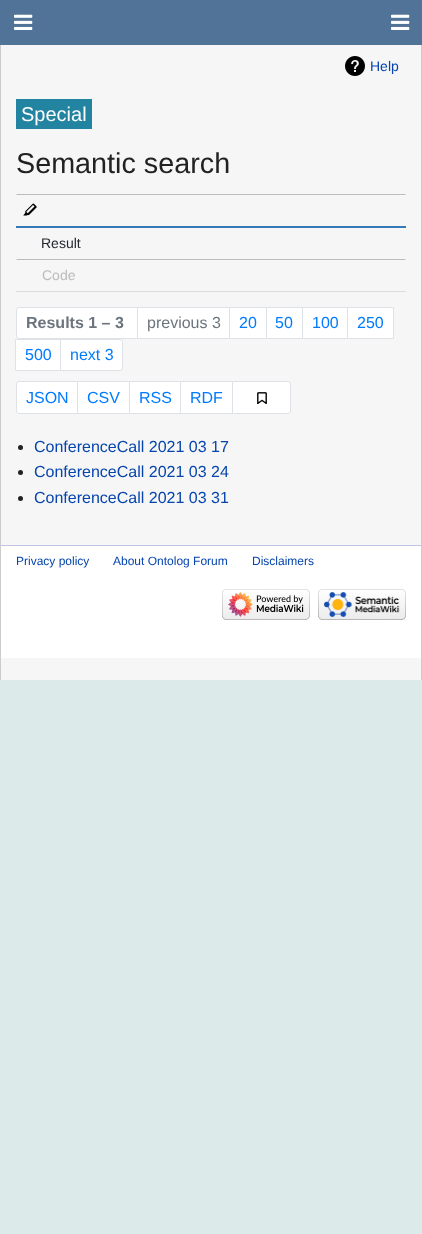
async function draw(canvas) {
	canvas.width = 422;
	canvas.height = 1234;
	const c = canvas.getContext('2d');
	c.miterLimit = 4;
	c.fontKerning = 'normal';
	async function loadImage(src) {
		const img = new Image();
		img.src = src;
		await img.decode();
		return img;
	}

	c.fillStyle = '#dceaea';
	c.fillRect(0, 0, 422, 1234);
	c.fillStyle = '#517398';
	c.fillRect(0, 0, 422, 45);
	c.drawImage(await loadImage('img1.png'), 14, 14, 19, 16);
	c.drawImage(await loadImage('img1.png'), 391, 14, 19, 16);
	for (const [x, y, w, h, color] of [
		[1, 45, 420, 635, '#f6f6f6'],
		[421, 45, 1, 635, '#ccc'],
		[0, 45, 1, 635, '#ccc'],
	]) {
		c.fillStyle = color;
		c.fillRect(x, y, w, h);
	}
	c.drawImage(await loadImage('img2.png'), 345, 56, 20, 20);
	c.font = '14px Liberation Sans';
	c.fillStyle = '#0645ad';
	c.fillText('Help', 370, 71);
	c.fillStyle = '#2284a1';
	c.fillRect(16, 99, 76, 30);
	c.font = '20px Liberation Sans';
	c.fillStyle = '#fff';
	c.fillText('Special', 21, 121);
	c.font = '28.75px Liberation Sans';
	c.fillStyle = '#222';
	c.fillText('Semantic search', 16, 173);
	c.fillStyle = '#bbb';
	c.beginPath();
	c.moveTo(16, 194);
	c.lineTo(406, 194);
	c.lineTo(405, 195);
	c.lineTo(17, 195);
	c.closePath();
	c.fill();
	c.drawImage(await loadImage('img3.png'), 23, 203, 14, 13);
	c.fillStyle = '#337ab7';
	c.fillRect(16, 226, 390, 2);
	c.fillStyle = '#fff';
	c.fillRect(16, 259, 390, 1);
	c.font = '14px Liberation Sans';
	c.fillStyle = '#24292e';
	c.fillText('Result', 41, 248);
	c.fillStyle = '#bbb';
	c.beginPath();
	c.moveTo(16, 259);
	c.lineTo(406, 259);
	c.lineTo(405, 260);
	c.lineTo(17, 260);
	c.closePath();
	c.fill();
	c.fillText('Code', 42, 280);
	c.fillStyle = '#ddd';
	c.fillRect(16, 291, 390, 1);
	c.fillStyle = '#fff';
	c.beginPath();
	c.roundRect(16.5, 307.5, 121, 31, [2.5, 0, 0, 2.5]);
	c.fill();
	c.strokeStyle = '#dee2e6';
	c.stroke();
	c.font = 'bold 16px Liberation Sans';
	c.fillStyle = '#6c757d';
	c.fillText('Results 1 – 3', 26, 328);
	c.fillStyle = '#fff';
	c.beginPath();
	c.rect(137.5, 307.5, 92, 31);
	c.fill();
	c.stroke();
	c.font = '16px Liberation Sans';
	c.fillStyle = '#6c757d';
	c.fillText('previous 3', 147, 328);
	c.fillStyle = '#fff';
	c.beginPath();
	c.rect(229.5, 307.5, 37, 31);
	c.fill();
	c.stroke();
	c.fillStyle = '#007bff';
	c.fillText('20', 239, 328);
	c.fillStyle = '#fff';
	c.beginPath();
	c.rect(266.5, 307.5, 36, 31);
	c.fill();
	c.stroke();
	c.fillStyle = '#007bff';
	c.fillText('50', 275, 328);
	c.fillStyle = '#fff';
	c.beginPath();
	c.rect(302.5, 307.5, 45, 31);
	c.fill();
	c.stroke();
	c.fillStyle = '#007bff';
	c.fillText('100', 312, 328);
	c.fillStyle = '#fff';
	c.beginPath();
	c.rect(347.5, 307.5, 46, 31);
	c.fill();
	c.stroke();
	c.fillStyle = '#007bff';
	c.fillText('250', 357, 328);
	c.fillStyle = '#fff';
	c.beginPath();
	c.rect(15.5, 339.5, 45, 31);
	c.fill();
	c.stroke();
	c.fillStyle = '#007bff';
	c.fillText('500', 25, 360);
	c.fillStyle = '#fff';
	c.beginPath();
	c.roundRect(60.5, 339.5, 62, 31, [0, 2.5, 2.5, 0]);
	c.fill();
	c.stroke();
	c.fillStyle = '#007bff';
	c.fillText('next 3', 70, 360);
	c.fillStyle = '#fff';
	c.beginPath();
	c.roundRect(16.5, 381.5, 61, 32, [2.5, 0, 0, 2.5]);
	c.fill();
	c.stroke();
	c.fillStyle = '#007bff';
	c.fillText('JSON', 26, 403);
	c.fillStyle = '#fff';
	c.beginPath();
	c.rect(77.5, 381.5, 52, 32);
	c.fill();
	c.stroke();
	c.fillStyle = '#007bff';
	c.fillText('CSV', 87, 403);
	c.fillStyle = '#fff';
	c.beginPath();
	c.rect(129.5, 381.5, 51, 32);
	c.fill();
	c.stroke();
	c.fillStyle = '#007bff';
	c.fillText('RSS', 139, 403);
	c.fillStyle = '#fff';
	c.beginPath();
	c.rect(180.5, 381.5, 52, 32);
	c.fill();
	c.stroke();
	c.fillStyle = '#007bff';
	c.fillText('RDF', 190, 403);
	c.fillStyle = '#fff';
	c.beginPath();
	c.roundRect(232.5, 381.5, 58, 32, [0, 2.5, 2.5, 0]);
	c.fill();
	c.stroke();
	c.drawImage(await loadImage('img4.png'), 257, 392, 10, 12);
	c.fillStyle = '#222';
	c.beginPath();
	c.arc(20.5, 447.5, 2.5, 0, 2 * Math.PI);
	c.fill();
	c.fillStyle = '#0645ad';
	c.fillText('ConferenceCall 2021 03 17', 34, 452);
	c.fillStyle = '#222';
	c.beginPath();
	c.arc(20.5, 472.5, 2.5, 0, 2 * Math.PI);
	c.fill();
	c.fillStyle = '#0645ad';
	c.fillText('ConferenceCall 2021 03 24', 34, 477);
	c.fillStyle = '#222';
	c.beginPath();
	c.arc(20.5, 498.5, 2.5, 0, 2 * Math.PI);
	c.fill();
	c.fillStyle = '#0645ad';
	c.fillText('ConferenceCall 2021 03 31', 34, 503);
	c.fillStyle = '#fff';
	c.fillRect(1, 546, 420, 112);
	c.fillStyle = '#c3c3e5';
	c.fillRect(1, 545, 420, 1);
	c.font = '12px Liberation Sans';
	c.fillStyle = '#0645ad';
	for (const [text, x, y] of [
		['Privacy policy', 16, 565],
		['About Ontolog Forum', 113, 565],
		['Disclaimers', 252, 565],
	]) {
		c.fillText(text, x, y);
	}
	c.drawImage(await loadImage('img5.png'), 222, 589, 88, 31);
	c.drawImage(await loadImage('img6.png'), 318, 589, 88, 31);
}

draw(document.querySelector('canvas'));
